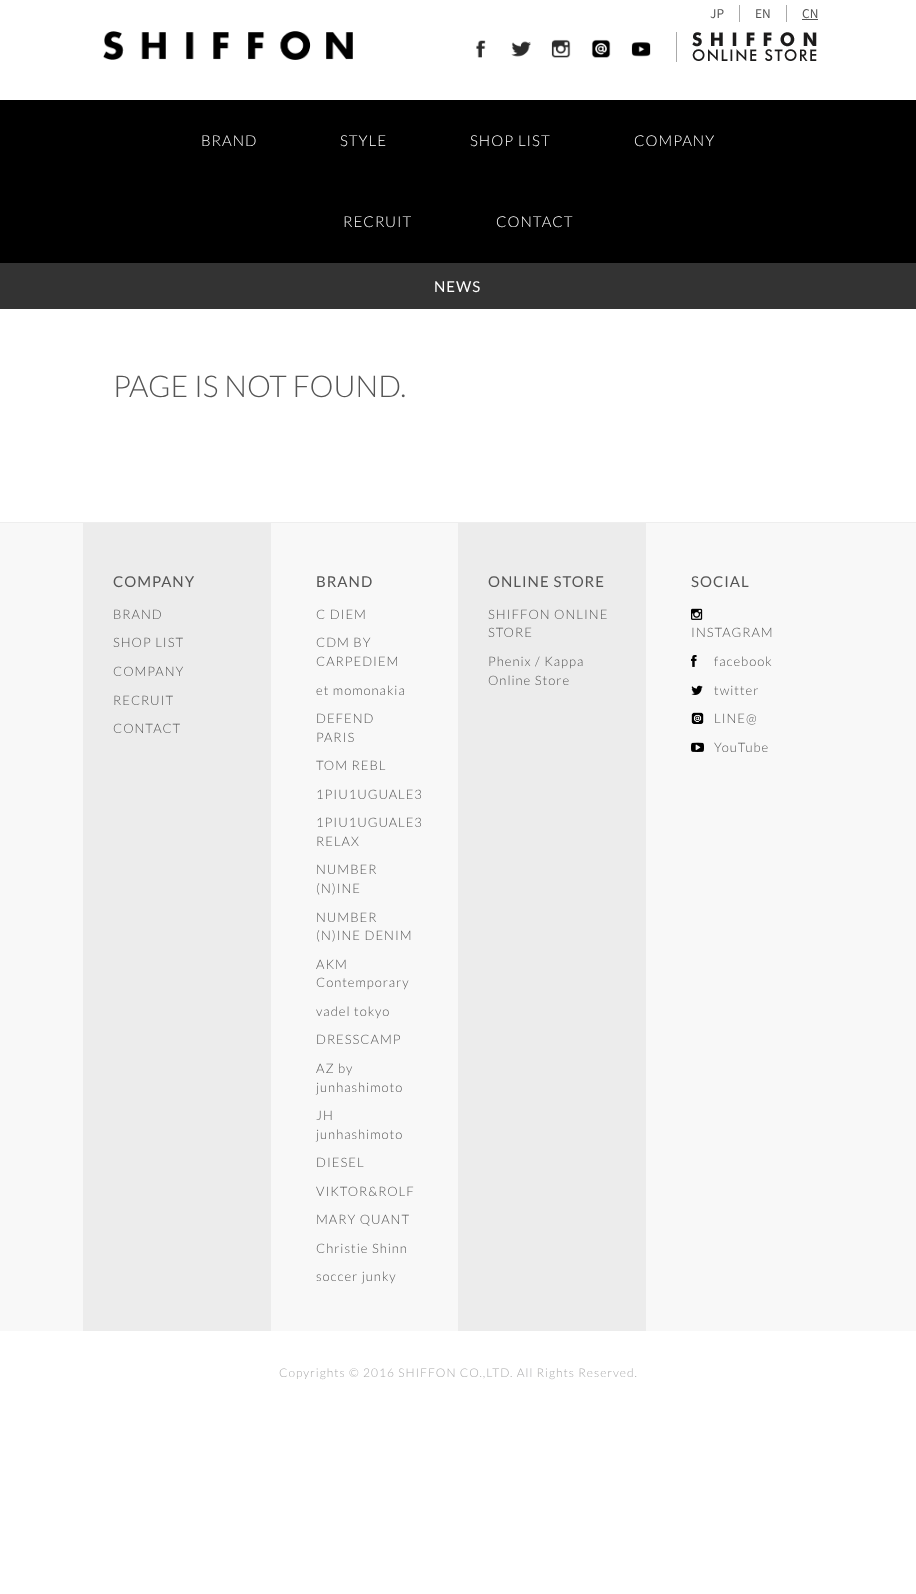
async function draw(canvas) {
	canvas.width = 916;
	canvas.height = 1594;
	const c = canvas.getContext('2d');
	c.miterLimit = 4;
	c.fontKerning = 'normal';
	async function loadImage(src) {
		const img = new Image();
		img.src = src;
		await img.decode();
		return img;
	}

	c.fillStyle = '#fff';
	c.fillRect(0, 0, 916, 1594);
	c.fillStyle = '#aaa';
	c.fillRect(739, 5, 1, 17);
	c.font = '12px Noto Sans JP';
	c.fillStyle = '#555';
	c.fillText('JP', 710, 18);
	c.fillStyle = '#aaa';
	c.fillRect(786, 5, 1, 17);
	c.fillStyle = '#555';
	c.fillText('EN', 755, 18);
	c.fillText('CN', 802, 18);
	c.fillRect(802, 19, 16, 1);
	c.drawImage(await loadImage('img1.png'), 476, 40, 10, 18);
	c.drawImage(await loadImage('img2.png'), 511, 41, 20, 16);
	c.drawImage(await loadImage('img3.png'), 551, 39, 20, 19);
	c.drawImage(await loadImage('img4.png'), 591, 39, 20, 19);
	c.drawImage(await loadImage('img5.png'), 631, 42, 20, 15);
	c.fillStyle = '#aaa';
	c.fillRect(676, 32, 1, 30);
	c.drawImage(await loadImage('img6.png'), 692, 32, 125, 29);
	c.drawImage(await loadImage('img7.png'), 103, 31, 250, 29);
	c.fillStyle = '#000';
	c.fillRect(0, 100, 916, 163);
	c.letterSpacing = '1px';
	c.font = '300 15px Lato';
	c.fillStyle = '#fff';
	for (const [text, x, y] of [
		['BRAND', 201, 146],
		['STYLE', 340, 146],
		['SHOP LIST', 470, 146],
		['COMPANY', 634, 146],
		['RECRUIT', 343, 227],
		['CONTACT', 496, 227],
	]) {
		c.fillText(text, x, y);
	}
	c.fillStyle = '#333';
	c.fillRect(0, 263, 916, 46);
	c.font = '15px Lato';
	c.fillStyle = '#fff';
	c.fillText('NEWS', 434, 292);
	c.letterSpacing = '0px';
	c.font = '300 30px Lato';
	c.fillStyle = '#555';
	c.fillText('PAGE IS NOT FOUND.', 113, 397);
	for (const [x, y, w, h, color] of [
		[0, 523, 916, 808, '#f8f8f8'],
		[0, 522, 916, 1, '#eee'],
		[83, 523, 188, 808, '#ececec'],
	]) {
		c.fillStyle = color;
		c.fillRect(x, y, w, h);
	}
	c.letterSpacing = '1px';
	c.font = '15px Lato';
	c.fillStyle = '#555';
	c.fillText('COMPANY', 113, 587);
	c.font = '300 13px Lato';
	for (const [text, x, y] of [
		['BRAND', 113, 619],
		['SHOP LIST', 113, 647],
		['COMPANY', 113, 676],
		['RECRUIT', 113, 705],
		['CONTACT', 113, 733],
	]) {
		c.fillText(text, x, y);
	}
	c.font = '15px Lato';
	c.fillText('BRAND', 316, 587);
	c.font = '300 13px Lato';
	for (const [text, x, y] of [
		['C DIEM', 316, 619],
		['CDM BY', 316, 647],
		['CARPEDIEM', 316, 666],
		['et momonakia', 316, 695],
		['DEFEND', 316, 723],
		['PARIS', 316, 742],
		['TOM REBL', 316, 770],
		['1PIU1UGUALE3', 316, 799],
		['1PIU1UGUALE3', 316, 827],
		['RELAX', 316, 846],
		['NUMBER', 316, 874],
		['(N)INE', 316, 893],
		['NUMBER', 316, 922],
		['(N)INE DENIM', 316, 940],
		['AKM', 316, 969],
		['Contemporary', 316, 987],
		['vadel tokyo', 316, 1016],
		['DRESSCAMP', 316, 1044],
		['AZ by', 316, 1073],
		['junhashimoto', 316, 1092],
		['JH', 316, 1120],
		['junhashimoto', 316, 1139],
		['DIESEL', 316, 1167],
		['VIKTOR&ROLF', 316, 1196],
		['MARY QUANT', 316, 1224],
		['Christie Shinn', 316, 1253],
		['soccer junky', 316, 1281],
	]) {
		c.fillText(text, x, y);
	}
	c.fillStyle = '#ececec';
	c.fillRect(458, 523, 188, 808);
	c.font = '15px Lato';
	c.fillStyle = '#555';
	c.fillText('ONLINE STORE', 488, 587);
	c.font = '300 13px Lato';
	for (const [text, x, y] of [
		['SHIFFON ONLINE', 488, 619],
		['STORE', 488, 637],
		['Phenix / Kappa', 488, 666],
		['Online Store', 488, 685],
	]) {
		c.fillText(text, x, y);
	}
	c.font = '15px Lato';
	c.fillText('SOCIAL', 691, 587);
	c.drawImage(await loadImage('img8.png'), 691, 608, 12, 12);
	c.font = '300 13px Lato';
	c.fillText('INSTAGRAM', 691, 637);
	c.drawImage(await loadImage('img9.png'), 691, 655, 6, 12);
	c.fillText('facebook', 714, 666);
	c.drawImage(await loadImage('img10.png'), 691, 685, 12, 10);
	c.fillText('twitter', 714, 695);
	c.drawImage(await loadImage('img11.png'), 691, 712, 13, 12);
	c.fillText('LINE@', 714, 723);
	c.drawImage(await loadImage('img12.png'), 691, 742, 13, 10);
	c.fillText('YouTube', 714, 752);
	c.font = '300 12px Lato';
	c.fillStyle = '#a9a9aa';
	c.fillText('Copyrights © 2016 SHIFFON CO.,LTD. All Rights Reserved.', 279, 1377);
}

draw(document.querySelector('canvas'));
